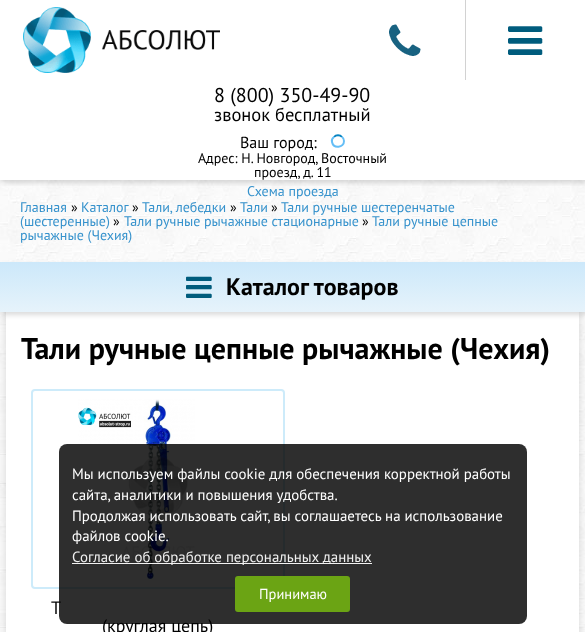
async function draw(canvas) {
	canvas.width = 585;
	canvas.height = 632;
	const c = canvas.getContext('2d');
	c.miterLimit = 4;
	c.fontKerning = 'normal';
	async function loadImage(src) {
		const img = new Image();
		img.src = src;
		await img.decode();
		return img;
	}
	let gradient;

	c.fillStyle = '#fff';
	c.fillRect(0, 0, 585, 632);
	c.drawImage(await loadImage('img4.png'), 0, 180, 585, 452);
	c.save();
	c.beginPath();
	c.rect(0, 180, 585, 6);
	c.clip();
	c.fillStyle = '#00000024';
	c.filter = 'blur(2.5px)';
	c.beginPath();
	c.rect(2, 3, 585, 180);
	c.fill();
	c.filter = 'none';
	c.restore();
	c.drawImage(await loadImage('img1.png'), 23, 7, 197, 66);
	c.drawImage(await loadImage('img2.png'), 389, 24, 32, 32);
	c.drawImage(await loadImage('img3.png'), 508, 26, 35, 29);
	c.fillStyle = '#d2d2d2';
	c.fillRect(465, 0, 1, 80);
	c.font = '20px PT Sans';
	c.fillStyle = '#000';
	c.fillText('8 (800) 350-49-90', 214, 102);
	c.font = '18.5px PT Sans';
	c.fillText('звонок бесплатный', 214, 121);
	c.font = '16px PT Sans';
	c.fillText('Ваш город:', 240, 148);
	c.beginPath();
	c.moveTo(334, 137);
	c.bezierCurveTo(336, 134.5, 340, 134.5, 342, 137);
	c.strokeStyle = '#0784c2';
	c.lineWidth = 2;
	c.stroke();
	c.beginPath();
	c.moveTo(342, 137);
	c.bezierCurveTo(343.5, 138, 344, 139.5, 344, 141);
	c.bezierCurveTo(344, 148, 333.5, 149, 332, 142);
	c.bezierCurveTo(331.5, 140, 332.5, 138, 334, 137);
	c.strokeStyle = '#65bef6';
	c.stroke();
	c.font = '14px PT Sans';
	c.fillText('Адрес: Н. Новгород, Восточный', 198, 163);
	c.fillText('проезд, д. 11', 254, 177);
	c.fillStyle = '#3692cc';
	c.fillText('Схема проезда', 247, 196);
	c.fillText('Главная', 20, 212);
	c.fillStyle = '#000';
	c.fillText('»', 71, 212);
	c.fillStyle = '#3692cc';
	c.fillText('Каталог', 81, 212);
	c.fillStyle = '#000';
	c.fillText('»', 132, 212);
	c.fillStyle = '#3692cc';
	c.fillText('Тали, лебедки', 142, 212);
	c.fillStyle = '#000';
	c.fillText('»', 230, 212);
	c.fillStyle = '#3692cc';
	c.fillText('Тали', 240, 212);
	c.fillStyle = '#000';
	c.fillText('»', 271, 212);
	c.fillStyle = '#3692cc';
	c.fillText('Тали ручные шестеренчатые', 281, 212);
	c.fillText('(шестеренные)', 20, 226);
	c.fillStyle = '#000';
	c.fillText('»', 113, 226);
	c.fillStyle = '#3692cc';
	c.fillText('Тали ручные рычажные стационарные', 124, 226);
	c.fillStyle = '#000';
	c.fillText('»', 362, 226);
	c.fillStyle = '#3692cc';
	c.fillText('Тали ручные цепные', 372, 226);
	c.fillText('рычажные (Чехия)', 20, 240);
	c.fillStyle = '#00000026';
	c.filter = 'blur(4px)';
	c.beginPath();
	c.rect(6, 312, 573, 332);
	c.fill();
	c.filter = 'none';
	c.fillStyle = '#fff';
	c.fillRect(6, 312, 573, 320);
	c.fillStyle = '#00000024';
	c.filter = 'blur(2.5px)';
	c.beginPath();
	c.rect(2, 265, 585, 50);
	c.fill();
	c.filter = 'none';
	gradient = c.createLinearGradient(293, 312, 293, 262);
	gradient.addColorStop(0, '#e6f3fb');
	gradient.addColorStop(1, '#cce8fa');
	c.fillStyle = gradient;
	c.fillRect(0, 262, 585, 50);
	c.drawImage(await loadImage('img5.png'), 186, 276, 26, 22);
	c.font = 'bold 24px PT Sans';
	c.fillStyle = '#000';
	c.fillText('Каталог товаров', 226, 295);
	c.font = 'bold 30px PT Sans';
	c.fillText('Тали ручные цепные рычажные (Чехия)', 21, 359);
	c.beginPath();
	c.roundRect(32, 390, 252, 198, 3);
	c.strokeStyle = '#cdebfa';
	c.stroke();
	c.drawImage(await loadImage('img6.png'), 78, 399, 117, 180);
	c.font = '18px PT Sans';
	c.fillText('Т', 51, 614);
	c.fillText('(круглая цепь)', 102, 632);
	c.fillStyle = '#000000d1';
	c.beginPath();
	c.roundRect(59, 444, 468, 180, 8);
	c.fill();
	c.font = '14.9px PT Sans';
	c.fillStyle = '#fff';
	for (const [text, x, y] of [
		['Мы используем файлы cookie для обеспечения корректной работы', 72, 479],
		['сайта, аналитики и повышения удобства.', 72, 500],
		['Продолжая использовать сайт, вы соглашаетесь на использование', 72, 521],
		['файлов cookie.', 72, 541],
	]) {
		c.fillText(text, x, y);
	}
	c.fillStyle = '#f1f1f1';
	c.fillRect(72, 563, 300, 1);
	c.fillText('Согласие об обработке персональных данных', 72, 562);
	c.fillStyle = '#6ba414';
	c.beginPath();
	c.roundRect(235, 576, 115, 36, 3);
	c.fill();
	c.font = '14.5px PT Sans';
	c.fillStyle = '#fff';
	c.fillText('Принимаю', 259, 599);
}

draw(document.querySelector('canvas'));
